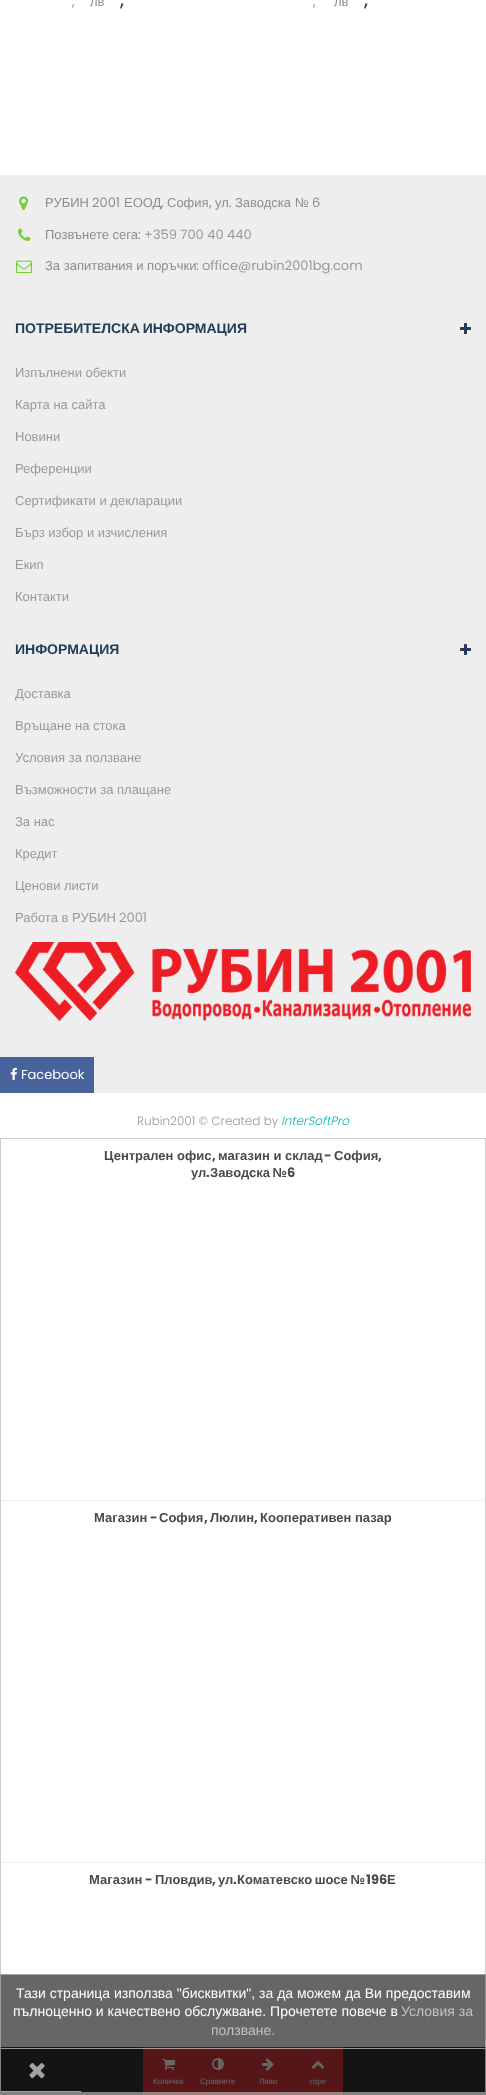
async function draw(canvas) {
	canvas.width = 486;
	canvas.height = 2095;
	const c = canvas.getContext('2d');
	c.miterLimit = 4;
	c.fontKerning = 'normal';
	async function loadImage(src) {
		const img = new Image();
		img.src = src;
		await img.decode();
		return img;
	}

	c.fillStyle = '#fff';
	c.fillRect(0, 0, 486, 2095);
	c.font = '13px Poppins';
	c.fillStyle = '#8c8c8c';
	c.fillText(',', 72, 6);
	c.font = '13px Liberation Sans';
	c.fillText('лв', 90, 6);
	c.font = '500 18px Poppins';
	c.fillStyle = '#223b56';
	c.fillText(',', 120, 6);
	c.font = '13px Poppins';
	c.fillStyle = '#8c8c8c';
	c.fillText(',', 313, 6);
	c.font = '13px Liberation Sans';
	c.fillText('лв', 334, 6);
	c.font = '500 18px Poppins';
	c.fillStyle = '#223b56';
	c.fillText(',', 364, 6);
	c.fillStyle = '#eee';
	c.fillRect(0, 175, 486, 918);
	c.drawImage(await loadImage('img1.png'), 19, 196, 10, 15);
	c.font = '13px Liberation Sans';
	c.fillStyle = '#8c8c8c';
	c.fillText('РУБИН', 45, 207);
	c.font = '13px Poppins';
	c.fillText('2001', 92, 207);
	c.font = '13px Liberation Sans';
	c.fillText('ЕООД', 124, 207);
	c.font = '13px Poppins';
	c.fillText(',', 161, 207);
	c.font = '13px Liberation Sans';
	c.fillText('София', 167, 207);
	c.font = '13px Poppins';
	c.fillText(',', 209, 207);
	c.font = '13px Liberation Sans';
	c.fillText('ул', 215, 207);
	c.font = '13px Poppins';
	c.fillText('.', 229, 207);
	c.font = '13px Liberation Sans';
	c.fillText('Заводска №', 235, 207);
	c.font = '13px Poppins';
	c.fillText('6', 312, 207);
	c.drawImage(await loadImage('img2.png'), 18, 228, 13, 13);
	c.font = '13px Liberation Sans';
	c.fillText('Позвънете сега', 45, 239);
	c.font = '13px Poppins';
	c.fillText(':', 138, 239);
	c.fillStyle = '#999';
	c.fillText('+359 700 40 440', 144, 239);
	c.drawImage(await loadImage('img3.png'), 16, 260, 16, 14);
	c.font = '13px Liberation Sans';
	c.fillStyle = '#8c8c8c';
	c.fillText('За запитвания и поръчки', 45, 270);
	c.font = '13px Poppins';
	c.fillText(':', 196, 270);
	c.fillStyle = '#999';
	c.fillText('office@rubin2001bg.com', 202, 270);
	c.wordSpacing = '-1px';
	c.font = 'bold 14px Liberation Sans';
	c.fillStyle = '#223b56';
	c.fillText('ПОТРЕБИТЕЛСКА ИНФОРМАЦИЯ', 15, 333);
	c.drawImage(await loadImage('img4.png'), 460, 323, 11, 11);
	c.wordSpacing = '0px';
	c.font = '13px Liberation Sans';
	c.fillStyle = '#999';
	for (const [text, x, y] of [
		['Изпълнени обекти', 15, 377],
		['Карта на сайта', 15, 409],
		['Новини', 15, 441],
		['Референции', 15, 473],
		['Сертификати и декларации', 15, 505],
		['Бърз избор и изчисления', 15, 537],
		['Екип', 15, 569],
		['Контакти', 15, 601],
	]) {
		c.fillText(text, x, y);
	}
	c.font = 'bold 14px Liberation Sans';
	c.fillStyle = '#223b56';
	c.fillText('ИНФОРМАЦИЯ', 15, 654);
	c.drawImage(await loadImage('img4.png'), 460, 644, 11, 11);
	c.font = '13px Liberation Sans';
	c.fillStyle = '#999';
	for (const [text, x, y] of [
		['Доставка', 15, 698],
		['Връщане на стока', 15, 730],
		['Условия за ползване', 15, 762],
		['Възможности за плащане', 15, 794],
		['За нас', 15, 826],
		['Кредит', 15, 858],
		['Ценови листи', 15, 890],
		['Работа в РУБИН', 15, 922],
	]) {
		c.fillText(text, x, y);
	}
	c.font = '13px Poppins';
	c.fillText('2001', 119, 922);
	c.drawImage(await loadImage('img5.png'), 15, 942, 456, 79);
	c.fillStyle = '#48629b';
	c.fillRect(0, 1057, 94, 36);
	c.drawImage(await loadImage('img6.png'), 10, 1067, 7, 13);
	c.fillStyle = '#fff';
	c.fillText('Facebook', 21, 1079);
	c.strokeStyle = '#ccc';
	c.strokeRect(0.5, 1138.5, 485, 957);
	c.fillStyle = '#333';
	c.fillRect(0, 2047, 486, 48);
	c.fillStyle = '#d73639';
	c.fillRect(143, 2047, 200, 48);
	c.drawImage(await loadImage('img8.png'), 162, 2059, 13, 11);
	c.font = '8px Liberation Sans';
	c.fillStyle = '#fff';
	c.fillText('Количка', 153, 2084);
	c.drawImage(await loadImage('img9.png'), 212, 2058, 12, 12);
	c.fillText('Сравнете', 200, 2084);
	c.drawImage(await loadImage('img10.png'), 262, 2058, 12, 13);
	c.fillText('Ляво', 259, 2084);
	c.drawImage(await loadImage('img11.png'), 311, 2060, 14, 9);
	c.fillText('горе', 310, 2084);
	c.fillStyle = '#00000099';
	c.fillRect(0, 1974, 486, 121);
	c.strokeStyle = '#cccccc99';
	c.strokeRect(0.5, 1974.5, 485, 118);
	c.fillStyle = '#eeeeee99';
	c.fillRect(1, 2048, 484, 1);
	c.font = '14px Liberation Sans';
	c.fillStyle = '#fff';
	c.fillText('Тази страница използва "бисквитки", за да можем да Ви предоставим', 16, 1998);
	c.fillText('пълноценно и качествено обслужване. Прочетете повече в', 13, 2016);
	c.fillStyle = '#c2c2c2';
	c.fillText('Условия за', 401, 2016);
	c.fillText('ползване.', 211, 2035);
	c.fillStyle = '#a3a3a3';
	c.fillRect(1, 2091, 80, 1);
	c.drawImage(await loadImage('img7.png'), 29, 2063, 16, 16);
	c.fillStyle = '#cccccc99';
	c.fillRect(0, 2093, 486, 2);
	c.font = '300 12px Poppins';
	c.fillStyle = '#999';
	c.fillText('Rubin2001 © Created by', 137, 1125);
	c.font = 'italic 300 12px Poppins';
	c.fillStyle = '#18b5b6';
	c.fillText('InterSoftPro', 281, 1125);
	c.fillStyle = '#eee';
	c.fillRect(1, 1500, 484, 1);
	c.font = 'bold 13px Liberation Sans';
	c.fillStyle = '#4a4a4a';
	c.fillText('Централен офис', 104, 1160);
	c.fillText('магазин и склад', 218, 1160);
	c.font = 'bold 13px Poppins';
	c.fillText('-', 324, 1160);
	c.font = 'bold 13px Liberation Sans';
	c.fillText('София', 334, 1160);
	c.font = 'bold 13px Poppins';
	c.fillText(',', 212, 1160);
	c.fillText(',', 378, 1160);
	c.font = 'bold 13px Liberation Sans';
	c.fillText('ул', 191, 1177);
	c.font = 'bold 13px Poppins';
	c.fillText('.', 206, 1177);
	c.wordSpacing = '-1px';
	c.font = 'bold 13px Liberation Sans';
	c.fillText('Заводска №', 210, 1177);
	c.wordSpacing = '0px';
	c.font = 'bold 13px Poppins';
	c.fillText('6', 287, 1177);
	c.fillStyle = '#eee';
	c.fillRect(1, 1862, 484, 1);
	c.font = 'bold 13px Liberation Sans';
	c.fillStyle = '#4a4a4a';
	c.fillText('Магазин', 94, 1522);
	c.font = 'bold 13px Poppins';
	c.fillText('-', 150, 1522);
	c.font = 'bold 13px Liberation Sans';
	for (const [text, x, y] of [
		['София', 159, 1522],
		['Люлин', 210, 1522],
		['Кооперативен пазар', 260, 1522],
	]) {
		c.fillText(text, x, y);
	}
	c.font = 'bold 13px Poppins';
	c.fillText(',', 204, 1522);
	c.fillText(',', 254, 1522);
	c.font = 'bold 13px Liberation Sans';
	c.fillText('Магазин', 89, 1884);
	c.font = 'bold 13px Poppins';
	c.fillText('-', 145, 1884);
	c.font = 'bold 13px Liberation Sans';
	c.fillText('Пловдив', 155, 1884);
	c.fillText('ул', 218, 1884);
	c.wordSpacing = '-1px';
	c.fillText('Коматевско шосе №', 237, 1884);
	c.wordSpacing = '0px';
	c.font = 'bold 13px Poppins';
	c.fillText('196', 366, 1884);
	c.font = 'bold 13px Liberation Sans';
	c.fillText('Е', 387, 1884);
	c.font = 'bold 13px Poppins';
	c.fillText(',', 212, 1884);
	c.fillText('.', 233, 1884);
}

draw(document.querySelector('canvas'));
